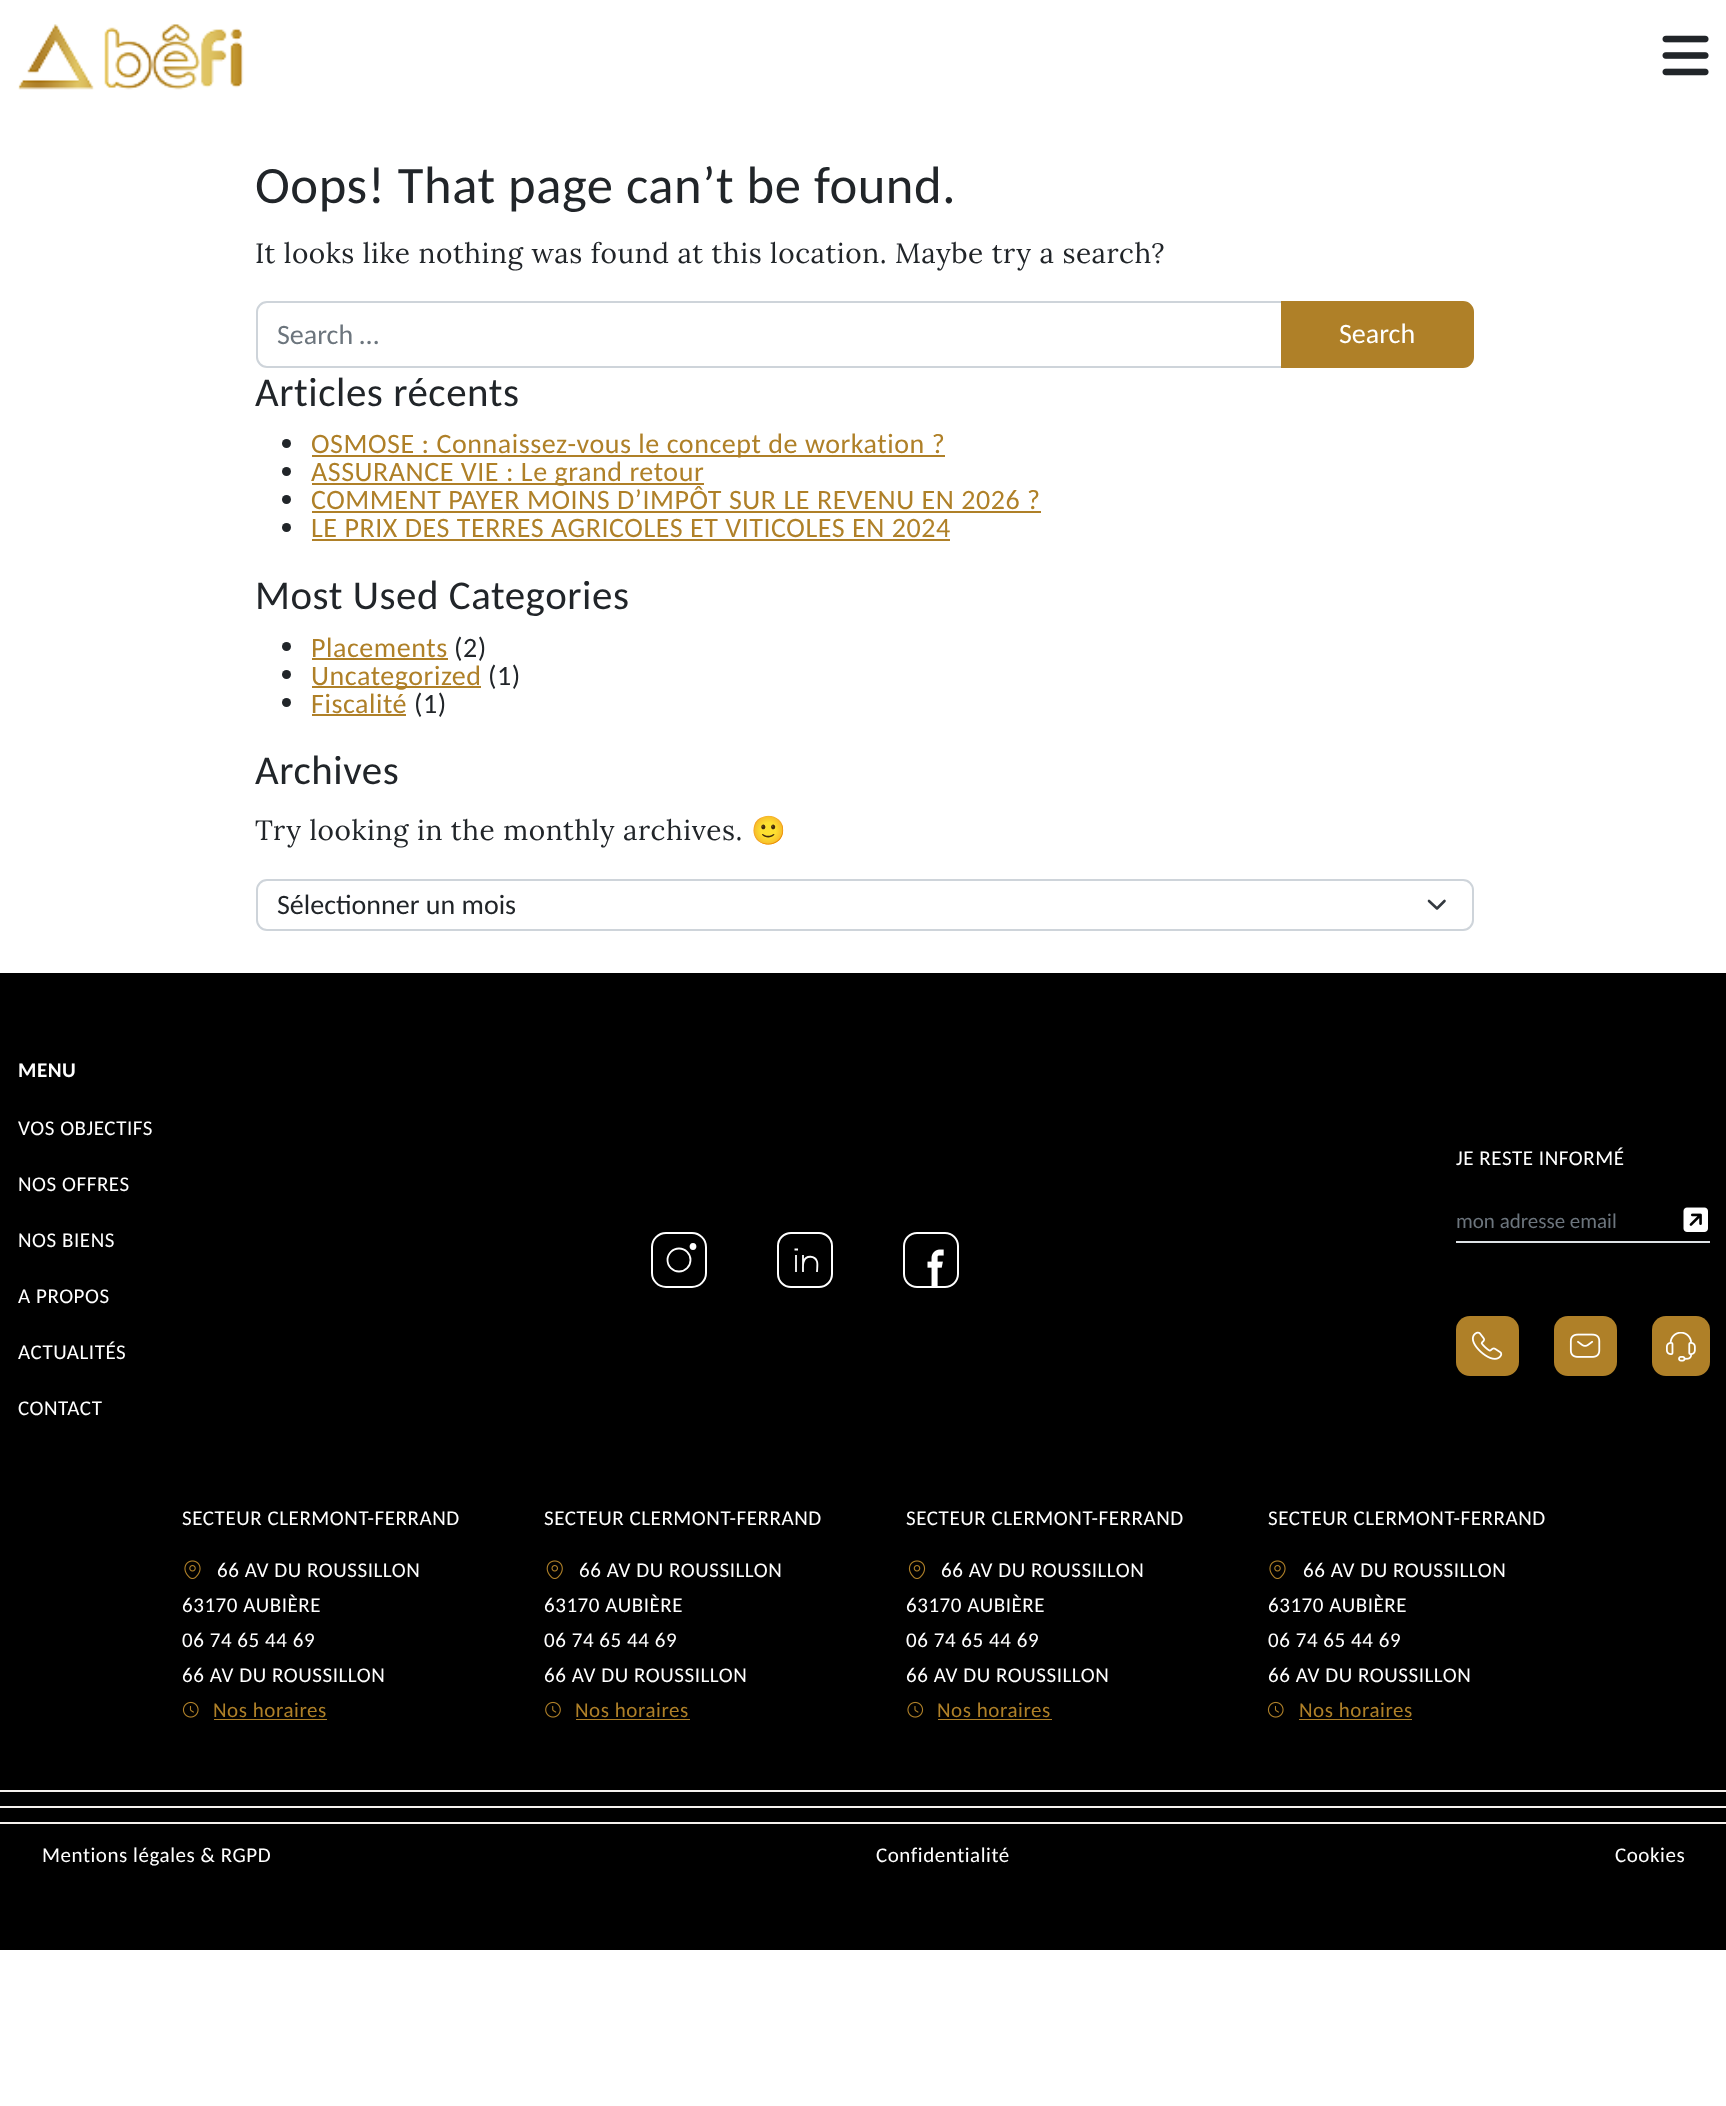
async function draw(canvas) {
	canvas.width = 1726;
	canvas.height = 2106;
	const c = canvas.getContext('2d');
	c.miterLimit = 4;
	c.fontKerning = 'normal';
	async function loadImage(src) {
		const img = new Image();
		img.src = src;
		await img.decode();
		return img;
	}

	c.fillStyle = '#fff';
	c.fillRect(0, 0, 1726, 2106);
	c.drawImage(await loadImage('img1.png'), 18, 24, 226, 66);
	c.drawImage(await loadImage('img2.png'), 1662, 35, 47, 41);
	c.letterSpacing = '0.55px';
	c.font = '52.6px Carlito';
	c.fillStyle = '#212529';
	c.fillText('Oops! That page can’t be found.', 255, 203);
	c.font = '28px Lora';
	c.fillText('It looks like nothing was found at this location. Maybe try a search?', 255, 263);
	c.beginPath();
	c.roundRect(257, 302, 1025, 65, [10, 0, 0, 10]);
	c.strokeStyle = '#ced4da';
	c.lineWidth = 2;
	c.stroke();
	c.letterSpacing = '0px';
	c.font = '28px Carlito';
	c.fillStyle = '#6c757d';
	c.fillText('Search …', 277, 344);
	c.fillStyle = '#af8028';
	c.beginPath();
	c.roundRect(1282, 302, 191, 65, [0, 10, 10, 0]);
	c.fill();
	c.strokeStyle = '#af8028';
	c.stroke();
	c.fillStyle = '#fff';
	c.fillText('Search', 1339, 343);
	c.letterSpacing = '0.55px';
	c.font = '40.9px Carlito';
	c.fillStyle = '#212529';
	c.fillText('Articles récents', 255, 406);
	c.beginPath();
	c.arc(286.5, 443.5, 4.5, 0, 2 * Math.PI);
	c.fill();
	c.fillStyle = '#af8028';
	c.fillRect(312, 455, 633, 2);
	c.font = '28px Carlito';
	c.fillText('OSMOSE : Connaissez-vous le concept de workation ?', 311, 453);
	c.fillStyle = '#212529';
	c.beginPath();
	c.arc(286.5, 471.5, 4.5, 0, 2 * Math.PI);
	c.fill();
	c.fillStyle = '#af8028';
	c.fillRect(312, 483, 392, 2);
	c.fillText('ASSURANCE VIE : Le grand retour', 311, 481);
	c.fillStyle = '#212529';
	c.beginPath();
	c.arc(286.5, 499.5, 4.5, 0, 2 * Math.PI);
	c.fill();
	c.fillStyle = '#af8028';
	c.fillText('COMMENT PAYER MOINS D’IMPÔT SUR LE REVENU EN 2026 ?', 311, 509);
	c.fillRect(312, 511, 729, 2);
	c.fillStyle = '#212529';
	c.beginPath();
	c.arc(286.5, 527.5, 4.5, 0, 2 * Math.PI);
	c.fill();
	c.fillStyle = '#af8028';
	c.fillText('LE PRIX DES TERRES AGRICOLES ET VITICOLES EN 2024', 311, 537);
	c.fillRect(312, 539, 638, 2);
	c.font = '40.9px Carlito';
	c.fillStyle = '#212529';
	c.fillText('Most Used Categories', 255, 609);
	c.beginPath();
	c.arc(286.5, 646.5, 4.5, 0, 2 * Math.PI);
	c.fill();
	c.font = '28px Carlito';
	c.fillStyle = '#af8028';
	c.fillText('Placements', 311, 657);
	c.fillRect(312, 658, 136, 2);
	c.fillStyle = '#212529';
	c.fillText('(2)', 454, 657);
	c.beginPath();
	c.arc(286.5, 674.5, 4.5, 0, 2 * Math.PI);
	c.fill();
	c.fillStyle = '#af8028';
	c.fillRect(312, 686, 169, 2);
	c.fillText('Uncategorized', 311, 685);
	c.fillStyle = '#212529';
	c.fillText('(1)', 488, 685);
	c.beginPath();
	c.arc(286.5, 702.5, 4.5, 0, 2 * Math.PI);
	c.fill();
	c.fillStyle = '#af8028';
	c.fillText('Fiscalité', 311, 713);
	c.fillRect(312, 714, 94, 2);
	c.fillStyle = '#212529';
	c.fillText('(1)', 414, 713);
	c.font = '40.9px Carlito';
	c.fillText('Archives', 255, 784);
	c.font = '28px Lora';
	c.fillText('Try looking in the monthly archives.', 255, 840);
	c.font = '28px Noto Color Emoji';
	c.fillText('🙂', 751, 840);
	c.beginPath();
	c.moveTo(1429, 901);
	c.lineTo(1437, 908.5);
	c.lineTo(1444.5, 901);
	c.strokeStyle = '#343a40';
	c.lineWidth = 2.6;
	c.lineCap = 'round';
	c.lineJoin = 'round';
	c.stroke();
	c.beginPath();
	c.roundRect(257, 880, 1216, 50, 10);
	c.strokeStyle = '#ced4da';
	c.lineWidth = 2;
	c.lineJoin = 'miter';
	c.stroke();
	c.letterSpacing = '0px';
	c.font = '28px Carlito';
	c.fillText('Sélectionner un mois', 277, 914);
	c.fillStyle = '#000';
	c.fillRect(0, 973, 1726, 977);
	c.letterSpacing = '0.55px';
	c.font = 'bold 21px Carlito';
	c.fillStyle = '#fff';
	c.fillText('MENU', 18, 1077);
	c.font = '21px Carlito';
	for (const [text, x, y] of [
		['VOS OBJECTIFS', 18, 1135],
		['NOS OFFRES', 18, 1191],
		['NOS BIENS', 18, 1247],
		['A PROPOS', 18, 1303],
		['ACTUALITÉS', 18, 1359],
		['CONTACT', 18, 1415],
		['JE RESTE INFORMÉ', 1456, 1165],
	]) {
		c.fillText(text, x, y);
	}
	c.fillStyle = '#dee2e6';
	c.fillRect(1456, 1241, 254, 2);
	c.letterSpacing = '0px';
	c.fillStyle = '#6c757d';
	c.fillText('mon adresse email', 1456, 1228);
	c.drawImage(await loadImage('img3.png'), 1683, 1207, 25, 25);
	c.fillStyle = '#af8028';
	c.beginPath();
	c.roundRect(1456, 1316, 63, 60, 14);
	c.fill();
	c.drawImage(await loadImage('img4.png'), 1471, 1331, 32, 29);
	c.beginPath();
	c.roundRect(1554, 1316, 63, 60, 14);
	c.fill();
	c.drawImage(await loadImage('img5.png'), 1569, 1333, 32, 25);
	c.beginPath();
	c.roundRect(1652, 1316, 58, 60, 14);
	c.fill();
	c.drawImage(await loadImage('img6.png'), 1666, 1332, 30, 30);
	c.fillStyle = '#fff';
	c.beginPath();
	c.moveTo(693, 1250);
	c.bezierCurveTo(697.5, 1250, 697.5, 1243, 693, 1243);
	c.bezierCurveTo(688.5, 1243, 688.5, 1250, 693, 1250);
	c.closePath();
	c.fill();
	c.beginPath();
	c.roundRect(652, 1233, 54, 54, 14);
	c.strokeStyle = '#fff';
	c.stroke();
	c.beginPath();
	c.arc(679, 1260, 11.5, 0, 2 * Math.PI);
	c.lineWidth = 1.8;
	c.stroke();
	c.beginPath();
	c.moveTo(796, 1255);
	c.lineTo(796, 1272);
	c.moveTo(817, 1272);
	c.bezierCurveTo(817, 1269, 818, 1264.5, 817, 1261.5);
	c.bezierCurveTo(815, 1255.5, 806, 1255, 804, 1261);
	c.bezierCurveTo(802.5, 1263.5, 803, 1269, 803, 1272);
	c.lineTo(803, 1255);
	c.moveTo(794.5, 1249.5);
	c.lineTo(798, 1249.5);
	c.lineCap = 'butt';
	c.stroke();
	c.beginPath();
	c.roundRect(778, 1233, 54, 54, 13);
	c.lineWidth = 2;
	c.stroke();
	c.drawImage(await loadImage('img7.png'), 903, 1232, 56, 56);
	c.letterSpacing = '0.55px';
	c.fillText('SECTEUR CLERMONT-FERRAND', 182, 1525);
	c.drawImage(await loadImage('img8.png'), 184, 1560, 17, 19);
	for (const [text, x, y] of [
		['66 AV DU ROUSSILLON', 217, 1577],
		['63170 AUBIÈRE', 182, 1612],
		['06 74 65 44 69', 182, 1647],
		['66 AV DU ROUSSILLON', 182, 1682],
	]) {
		c.fillText(text, x, y);
	}
	c.drawImage(await loadImage('img9.png'), 182, 1701, 17, 17);
	c.fillStyle = '#af8028';
	c.fillText('Nos horaires', 213, 1717);
	c.fillRect(214, 1719, 113, 1);
	c.fillStyle = '#fff';
	c.fillText('SECTEUR CLERMONT-FERRAND', 544, 1525);
	c.drawImage(await loadImage('img10.png'), 546, 1560, 17, 19);
	for (const [text, x, y] of [
		['66 AV DU ROUSSILLON', 579, 1577],
		['63170 AUBIÈRE', 544, 1612],
		['06 74 65 44 69', 544, 1647],
		['66 AV DU ROUSSILLON', 544, 1682],
	]) {
		c.fillText(text, x, y);
	}
	c.drawImage(await loadImage('img11.png'), 545, 1701, 16, 17);
	c.fillStyle = '#af8028';
	c.fillText('Nos horaires', 575, 1717);
	c.fillRect(576, 1719, 114, 1);
	c.fillStyle = '#fff';
	c.fillText('SECTEUR CLERMONT-FERRAND', 906, 1525);
	c.drawImage(await loadImage('img12.png'), 908, 1560, 18, 19);
	for (const [text, x, y] of [
		['66 AV DU ROUSSILLON', 941, 1577],
		['63170 AUBIÈRE', 906, 1612],
		['06 74 65 44 69', 906, 1647],
		['66 AV DU ROUSSILLON', 906, 1682],
	]) {
		c.fillText(text, x, y);
	}
	c.drawImage(await loadImage('img13.png'), 907, 1701, 17, 17);
	c.fillStyle = '#af8028';
	c.fillText('Nos horaires', 937, 1717);
	c.fillRect(938, 1719, 114, 1);
	c.fillStyle = '#fff';
	c.fillText('SECTEUR CLERMONT-FERRAND', 1268, 1525);
	c.drawImage(await loadImage('img8.png'), 1269, 1560, 17, 19);
	for (const [text, x, y] of [
		['66 AV DU ROUSSILLON', 1303, 1577],
		['63170 AUBIÈRE', 1268, 1612],
		['06 74 65 44 69', 1268, 1647],
		['66 AV DU ROUSSILLON', 1268, 1682],
	]) {
		c.fillText(text, x, y);
	}
	c.drawImage(await loadImage('img9.png'), 1267, 1701, 17, 17);
	c.fillStyle = '#af8028';
	c.fillText('Nos horaires', 1299, 1717);
	for (const [x, y, w, h, color] of [
		[1299, 1719, 113, 1, '#af8028'],
		[0, 1790, 1726, 2, '#f5f1ed'],
		[0, 1806, 1726, 2, '#f5f1ed'],
		[0, 1822, 1726, 2, '#f5f1ed'],
	]) {
		c.fillStyle = color;
		c.fillRect(x, y, w, h);
	}
	c.fillStyle = '#fff';
	for (const [text, x, y] of [
		['Mentions légales & RGPD', 42, 1862],
		['Confidentialité', 876, 1862],
		['Cookies', 1615, 1862],
	]) {
		c.fillText(text, x, y);
	}
}

draw(document.querySelector('canvas'));
